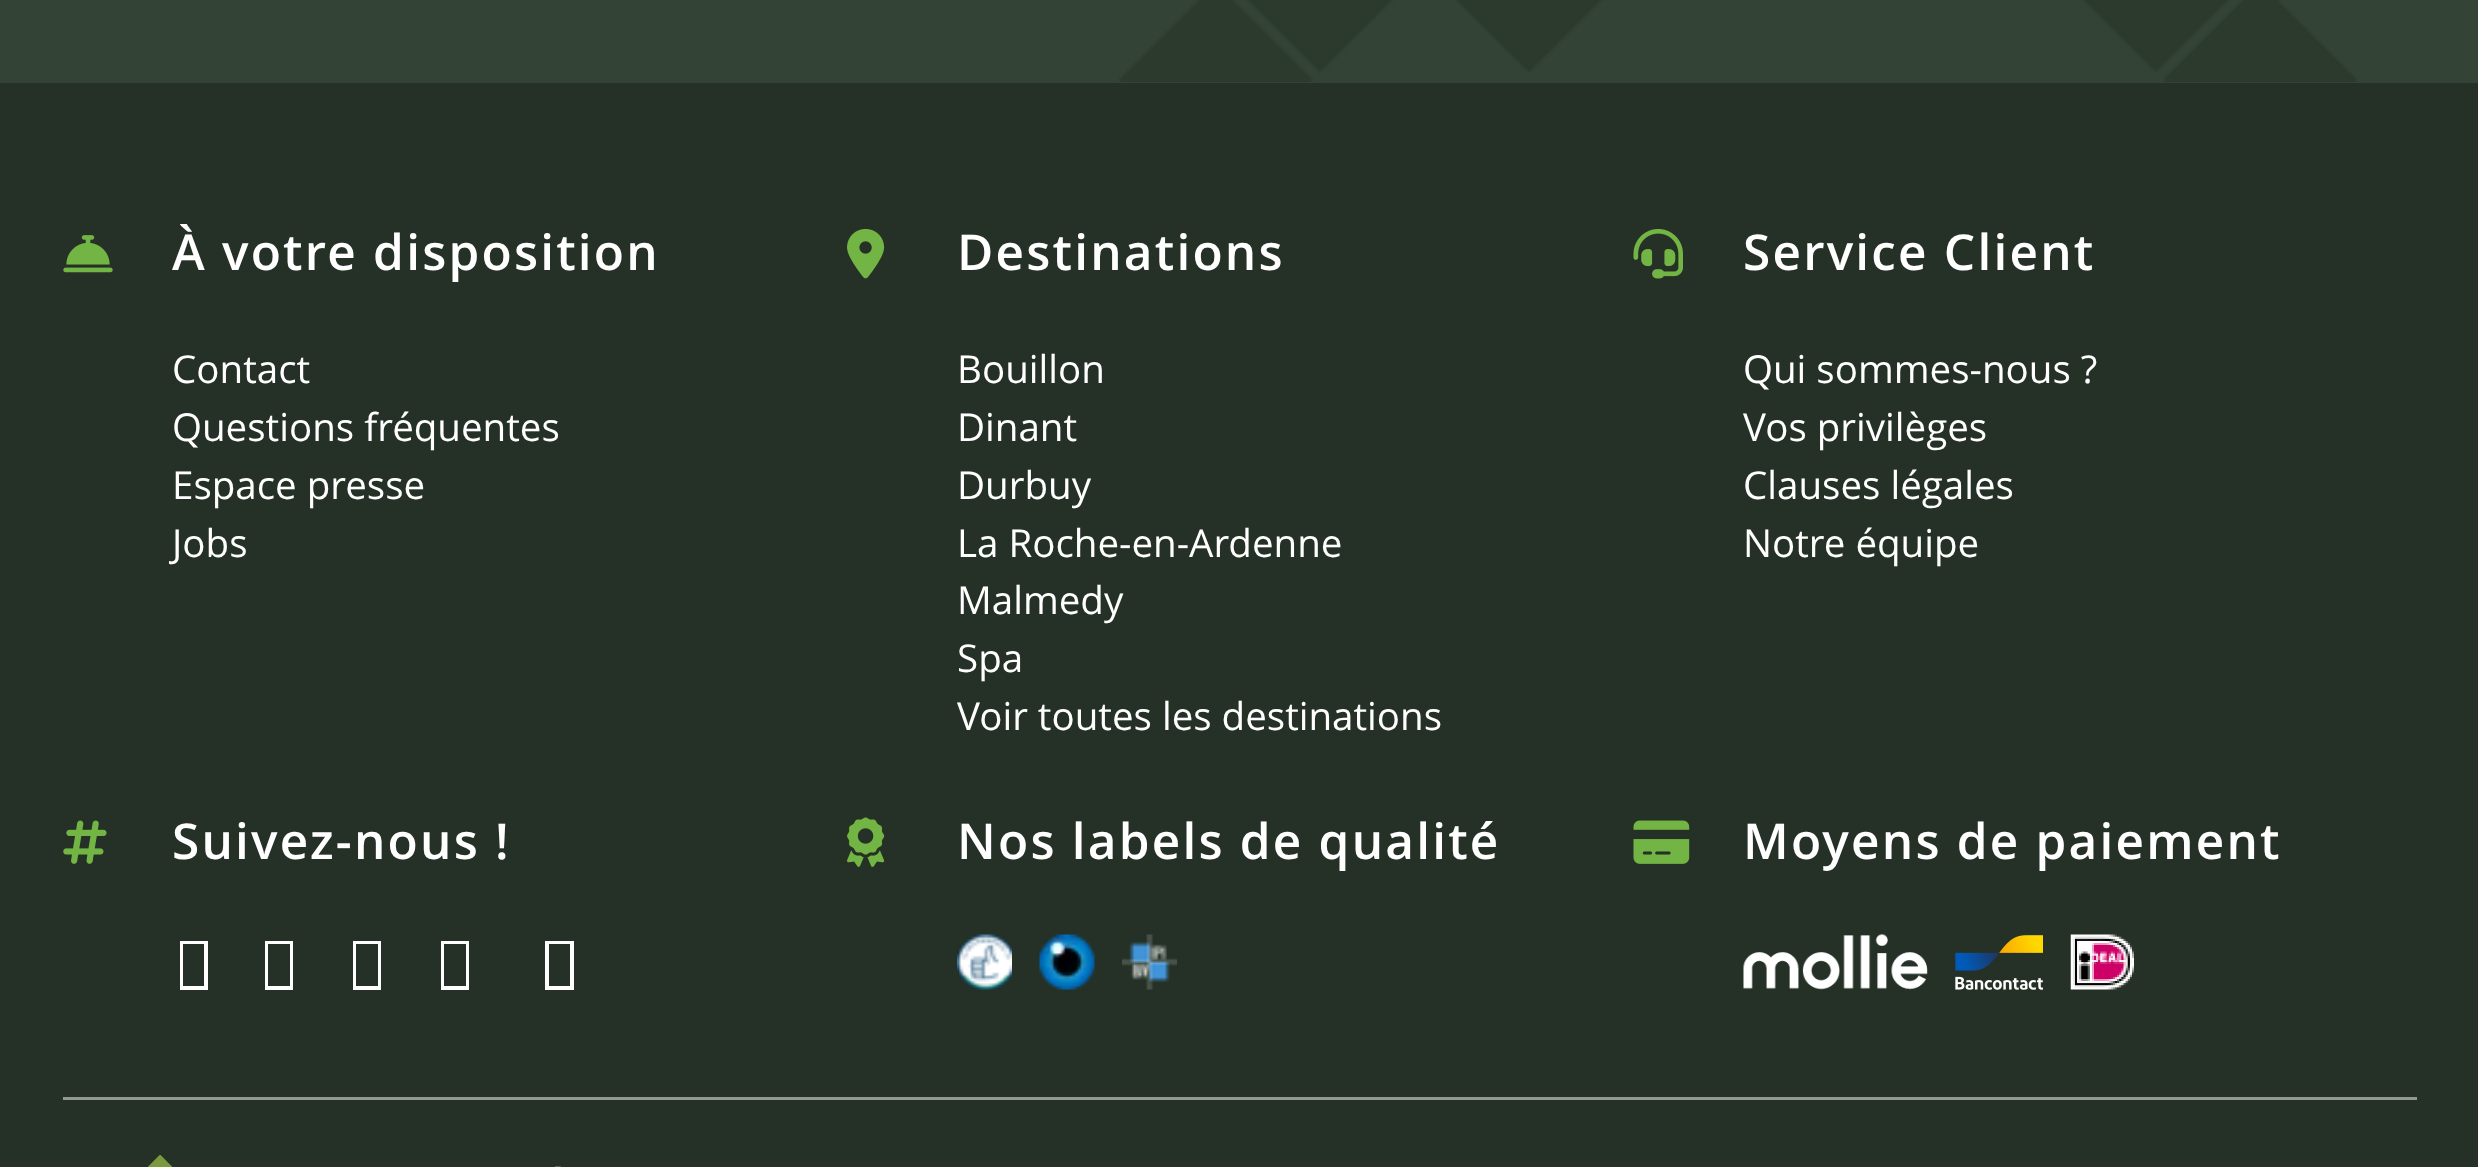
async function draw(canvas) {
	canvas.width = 2478;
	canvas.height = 1167;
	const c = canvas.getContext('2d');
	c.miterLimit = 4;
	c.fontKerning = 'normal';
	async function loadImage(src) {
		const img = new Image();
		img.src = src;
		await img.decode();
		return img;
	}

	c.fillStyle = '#253126';
	c.fillRect(0, 0, 2478, 1167);
	c.fillStyle = '#334335';
	c.fillRect(0, 0, 2478, 83);
	c.drawImage(await loadImage('img1.png'), 1119, 0, 1238, 82);
	c.drawImage(await loadImage('img2.png'), 63, 235, 50, 38);
	c.letterSpacing = '2.2px';
	c.font = '600 49.5px Open Sans';
	c.fillStyle = '#fff';
	c.fillText('À votre disposition', 172, 270);
	c.letterSpacing = '0px';
	c.font = '38.5px Open Sans';
	for (const [text, x, y] of [
		['Contact', 172, 383],
		['Questions fréquentes', 172, 441],
		['Espace presse', 172, 499],
		['Jobs', 172, 557],
	]) {
		c.fillText(text, x, y);
	}
	c.drawImage(await loadImage('img3.png'), 847, 228, 38, 51);
	c.letterSpacing = '2.2px';
	c.font = '600 49.5px Open Sans';
	c.fillText('Destinations', 957, 270);
	c.letterSpacing = '0px';
	c.font = '38.5px Open Sans';
	for (const [text, x, y] of [
		['Bouillon', 957, 383],
		['Dinant', 957, 441],
		['Durbuy', 957, 499],
		['La Roche-en-Ardenne', 957, 557],
		['Malmedy', 957, 614],
		['Spa', 957, 672],
		['Voir toutes les destinations', 957, 730],
	]) {
		c.fillText(text, x, y);
	}
	c.drawImage(await loadImage('img4.png'), 1633, 228, 50, 51);
	c.letterSpacing = '2.2px';
	c.font = '600 49.5px Open Sans';
	c.fillText('Service Client', 1743, 270);
	c.letterSpacing = '0px';
	c.font = '38.5px Open Sans';
	for (const [text, x, y] of [
		['Qui sommes-nous ?', 1743, 383],
		['Vos privilèges', 1743, 441],
		['Clauses légales', 1743, 499],
		['Notre équipe', 1743, 557],
	]) {
		c.fillText(text, x, y);
	}
	c.drawImage(await loadImage('img5.png'), 63, 820, 44, 44);
	c.letterSpacing = '2.2px';
	c.font = '600 49.5px Open Sans';
	c.fillText('Suivez-nous !', 172, 859);
	c.beginPath();
	c.moveTo(180, 990);
	c.lineTo(180, 941);
	c.lineTo(208, 941);
	c.lineTo(208, 990);
	c.closePath();
	c.moveTo(183, 986);
	c.lineTo(204, 986);
	c.lineTo(204, 944);
	c.lineTo(183, 944);
	c.closePath();
	c.fill();
	c.beginPath();
	c.moveTo(265, 990);
	c.lineTo(265, 941);
	c.lineTo(293, 941);
	c.lineTo(293, 990);
	c.closePath();
	c.moveTo(268, 986);
	c.lineTo(290, 986);
	c.lineTo(290, 944);
	c.lineTo(268, 944);
	c.closePath();
	c.fill();
	c.beginPath();
	c.moveTo(353, 990);
	c.lineTo(353, 941);
	c.lineTo(381, 941);
	c.lineTo(381, 990);
	c.closePath();
	c.moveTo(356, 986);
	c.lineTo(378, 986);
	c.lineTo(378, 944);
	c.lineTo(356, 944);
	c.closePath();
	c.fill();
	c.beginPath();
	c.moveTo(441, 990);
	c.lineTo(441, 941);
	c.lineTo(469, 941);
	c.lineTo(469, 990);
	c.closePath();
	c.moveTo(444, 986);
	c.lineTo(466, 986);
	c.lineTo(466, 944);
	c.lineTo(444, 944);
	c.closePath();
	c.fill();
	c.beginPath();
	c.moveTo(545, 990);
	c.lineTo(545, 941);
	c.lineTo(574, 941);
	c.lineTo(574, 990);
	c.closePath();
	c.moveTo(549, 986);
	c.lineTo(570, 986);
	c.lineTo(570, 944);
	c.lineTo(549, 944);
	c.closePath();
	c.fill();
	c.drawImage(await loadImage('img6.png'), 847, 817, 38, 50);
	c.fillText('Nos labels de qualité', 957, 859);
	c.drawImage(await loadImage('img7.png'), 957, 934, 55, 56);
	c.drawImage(await loadImage('img8.png'), 1039, 934, 56, 56);
	c.drawImage(await loadImage('img9.png'), 1122, 934, 55, 56);
	c.drawImage(await loadImage('img10.png'), 1633, 820, 57, 44);
	c.fillText('Moyens de paiement', 1743, 859);
	c.drawImage(await loadImage('img11.png'), 1743, 934, 185, 56);
	c.drawImage(await loadImage('img12.png'), 1955, 935, 88, 55);
	c.drawImage(await loadImage('img13.png'), 2070, 934, 64, 56);
	c.fillStyle = '#929893';
	c.fillRect(63, 1097, 2354, 3);
	c.drawImage(await loadImage('img14.png'), 147, 1155, 414, 12);
}

draw(document.querySelector('canvas'));
